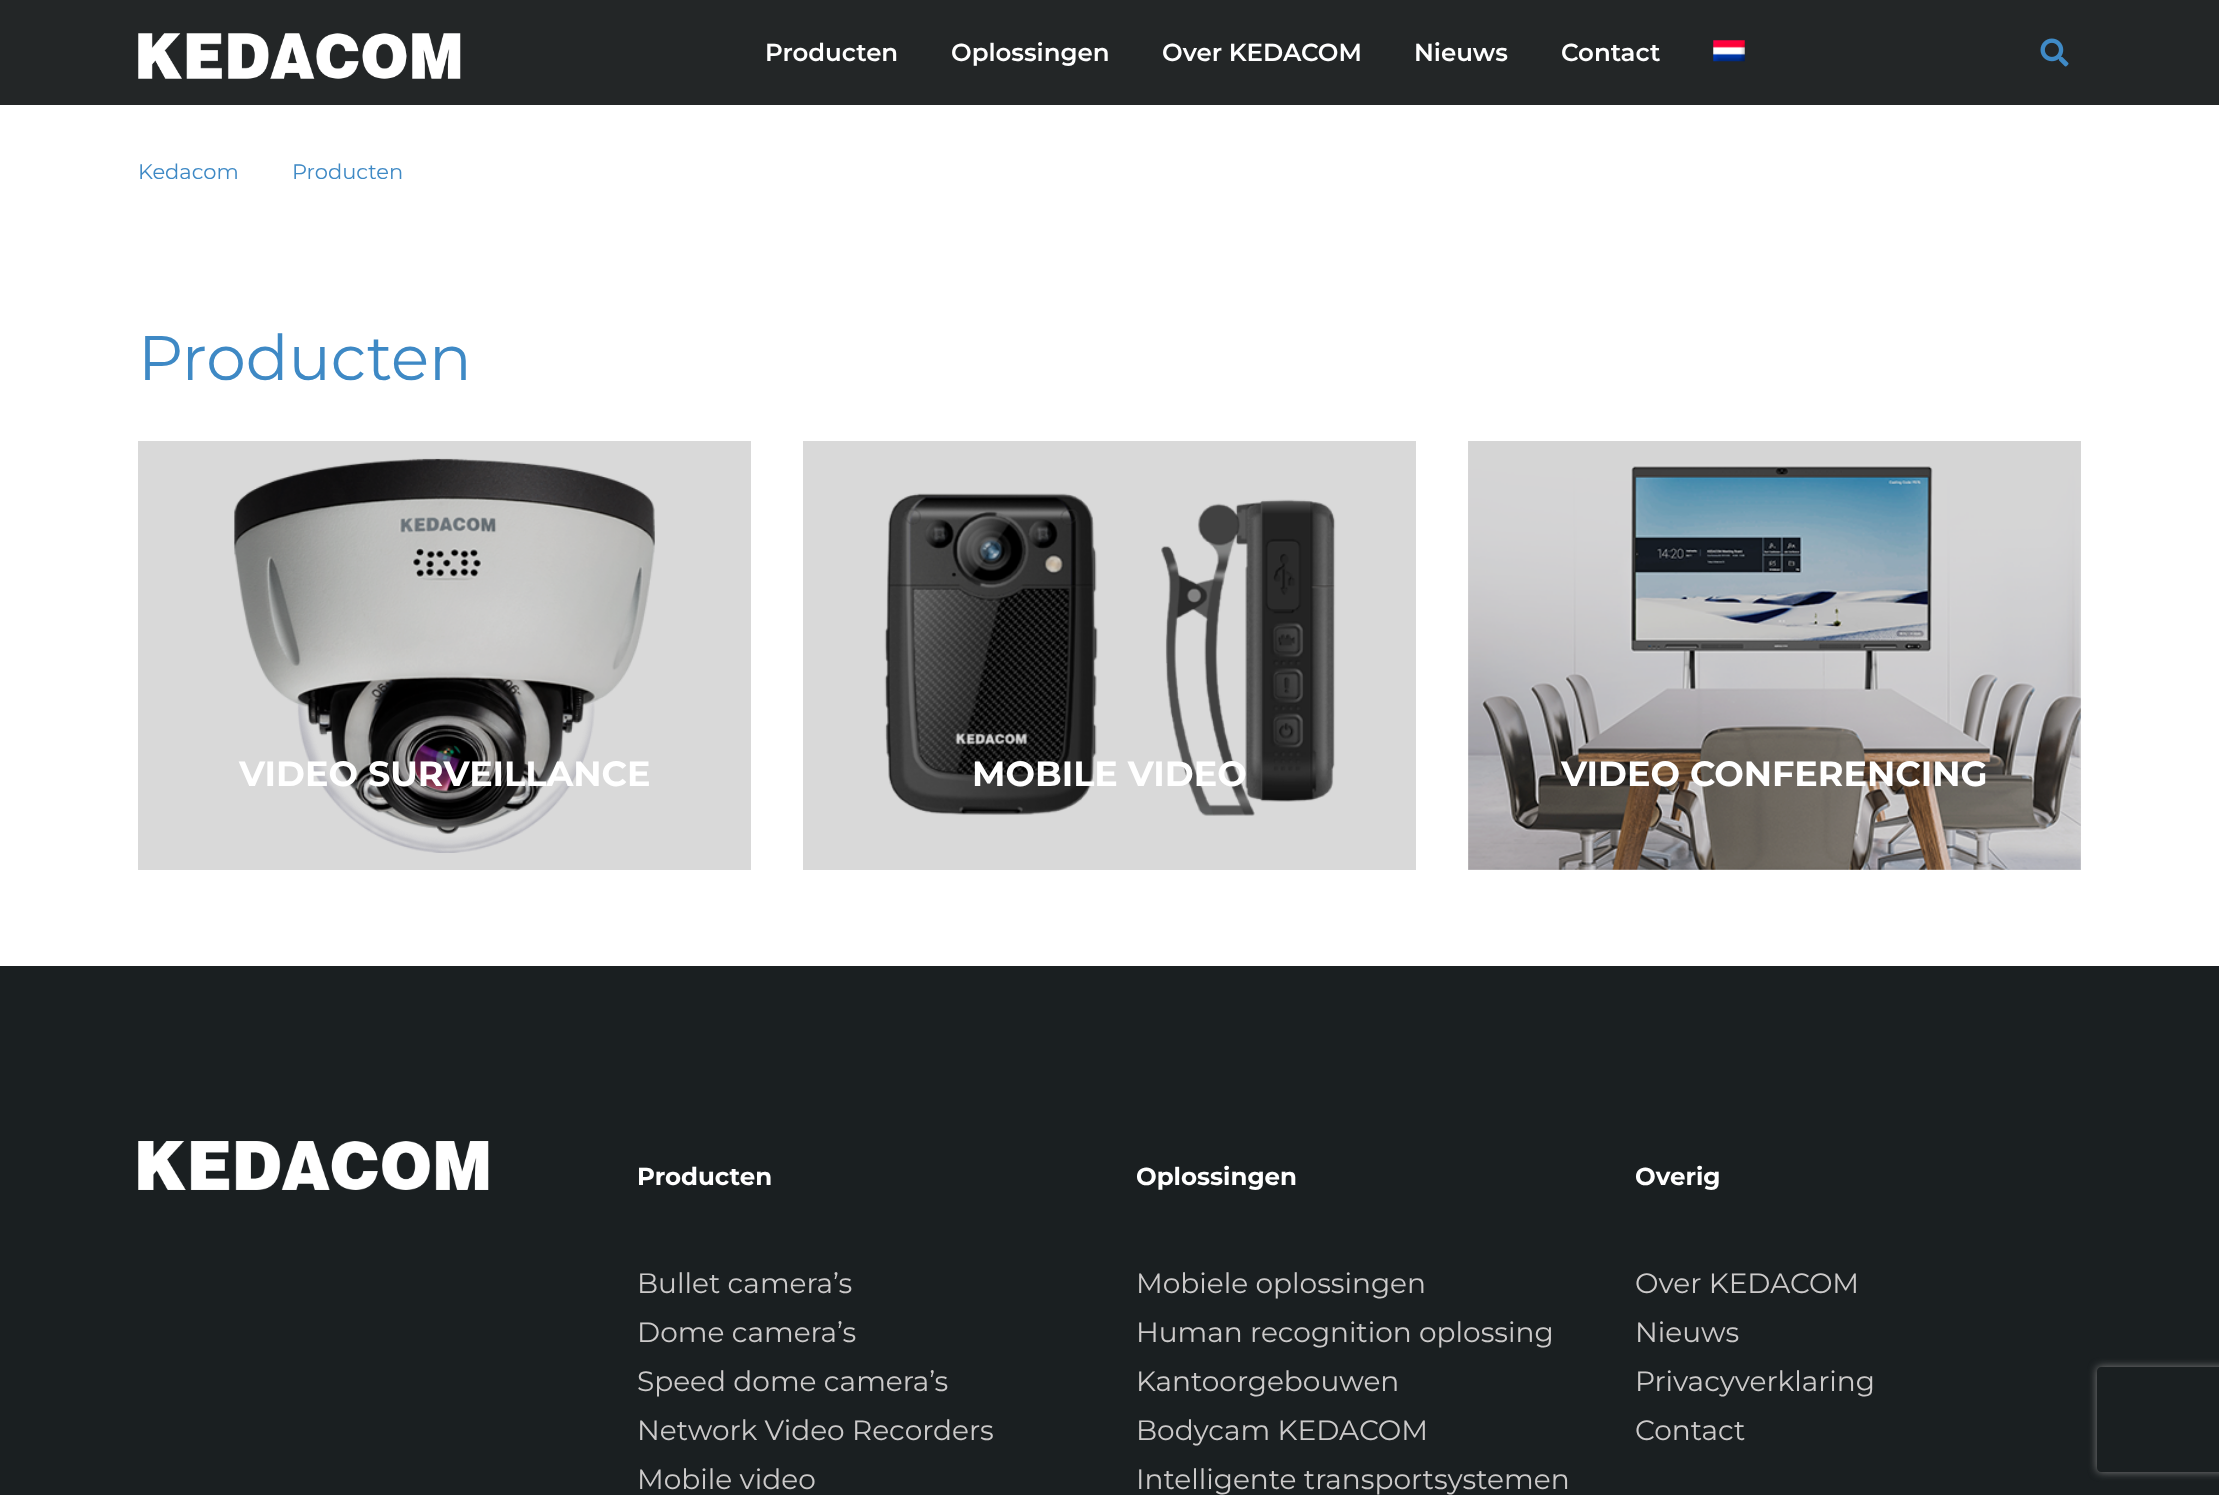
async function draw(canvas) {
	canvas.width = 2219;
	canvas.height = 1495;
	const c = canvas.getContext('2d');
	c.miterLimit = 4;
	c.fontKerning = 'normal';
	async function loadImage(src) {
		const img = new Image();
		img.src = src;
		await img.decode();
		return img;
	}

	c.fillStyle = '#fff';
	c.fillRect(0, 0, 2219, 1495);
	for (const [x, y, w, h, color] of [
		[1468, 441, 613, 429, '#d9d9d9'],
		[803, 441, 613, 429, '#d9d9d9'],
		[138, 441, 613, 429, '#d9d9d9'],
		[0, 0, 2219, 105, '#232627'],
	]) {
		c.fillStyle = color;
		c.fillRect(x, y, w, h);
	}
	c.drawImage(await loadImage('img1.png'), 138, 33, 323, 46);
	c.font = '600 24.5px Montserrat';
	c.fillStyle = '#fff';
	for (const [text, x, y] of [
		['Producten', 765, 61],
		['Oplossingen', 951, 61],
		['Over KEDACOM', 1162, 61],
		['Nieuws', 1414, 61],
		['Contact', 1561, 61],
	]) {
		c.fillText(text, x, y);
	}
	c.drawImage(await loadImage('img2.png'), 1713, 40, 32, 22);
	c.drawImage(await loadImage('img3.png'), 2040, 38, 29, 29);
	c.font = '21px Montserrat';
	c.fillStyle = '#3e89c5';
	c.fillText('Kedacom', 138, 179);
	c.fillText('Producten', 292, 179);
	c.font = '63px Montserrat';
	c.fillText('Producten', 138, 380);
	c.drawImage(await loadImage('img4.png'), 234, 458, 421, 395);
	c.font = 'bold 35px Montserrat';
	c.fillStyle = '#fff';
	c.fillText('VIDEO SURVEILLANCE', 239, 786);
	c.drawImage(await loadImage('img5.png'), 884, 493, 452, 323);
	c.fillText('MOBILE VIDEO', 972, 786);
	c.drawImage(await loadImage('img6.png'), 1468, 441, 613, 429);
	c.fillText('VIDEO CONFERENCING', 1561, 786);
	c.fillStyle = '#1a1f21';
	c.fillRect(0, 966, 2219, 529);
	c.drawImage(await loadImage('img7.png'), 138, 1141, 351, 49);
	c.font = 'bold 24.5px Montserrat';
	c.fillStyle = '#fff';
	c.fillText('Producten', 637, 1185);
	c.font = '28px Montserrat';
	c.fillStyle = '#cccaca';
	for (const [text, x, y] of [
		['Bullet camera’s', 637, 1293],
		['Dome camera’s', 637, 1342],
		['Speed dome camera’s', 637, 1391],
		['Network Video Recorders', 637, 1440],
		['Mobile video', 637, 1489],
	]) {
		c.fillText(text, x, y);
	}
	c.font = 'bold 24.5px Montserrat';
	c.fillStyle = '#fff';
	c.fillText('Oplossingen', 1136, 1185);
	c.font = '28px Montserrat';
	c.fillStyle = '#cccaca';
	for (const [text, x, y] of [
		['Mobiele oplossingen', 1136, 1293],
		['Human recognition oplossing', 1136, 1342],
		['Kantoorgebouwen', 1136, 1391],
		['Bodycam KEDACOM', 1136, 1440],
		['Intelligente transportsystemen', 1136, 1489],
	]) {
		c.fillText(text, x, y);
	}
	c.font = 'bold 24.5px Montserrat';
	c.fillStyle = '#fff';
	c.fillText('Overig', 1635, 1185);
	c.font = '28px Montserrat';
	c.fillStyle = '#cccaca';
	for (const [text, x, y] of [
		['Over KEDACOM', 1635, 1293],
		['Nieuws', 1635, 1342],
		['Privacyverklaring', 1635, 1391],
		['Contact', 1635, 1440],
	]) {
		c.fillText(text, x, y);
	}
	c.save();
	c.beginPath();
	c.moveTo(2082, 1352);
	c.lineTo(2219, 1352);
	c.lineTo(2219, 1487);
	c.lineTo(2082, 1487);
	c.closePath();
	c.moveTo(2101, 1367);
	c.lineTo(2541, 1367);
	c.bezierCurveTo(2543, 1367, 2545, 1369, 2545, 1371);
	c.lineTo(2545, 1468);
	c.bezierCurveTo(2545, 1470, 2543, 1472, 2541, 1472);
	c.lineTo(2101, 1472);
	c.bezierCurveTo(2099, 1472, 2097, 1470, 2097, 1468);
	c.lineTo(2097, 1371);
	c.bezierCurveTo(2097, 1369, 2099, 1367, 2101, 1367);
	c.closePath();
	c.clip('evenodd');
	c.fillStyle = '#808080';
	c.filter = 'blur(4.5px)';
	c.beginPath();
	c.roundRect(2097, 1367, 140, 105, 4);
	c.fill();
	c.filter = 'none';
	c.restore();
}

draw(document.querySelector('canvas'));
